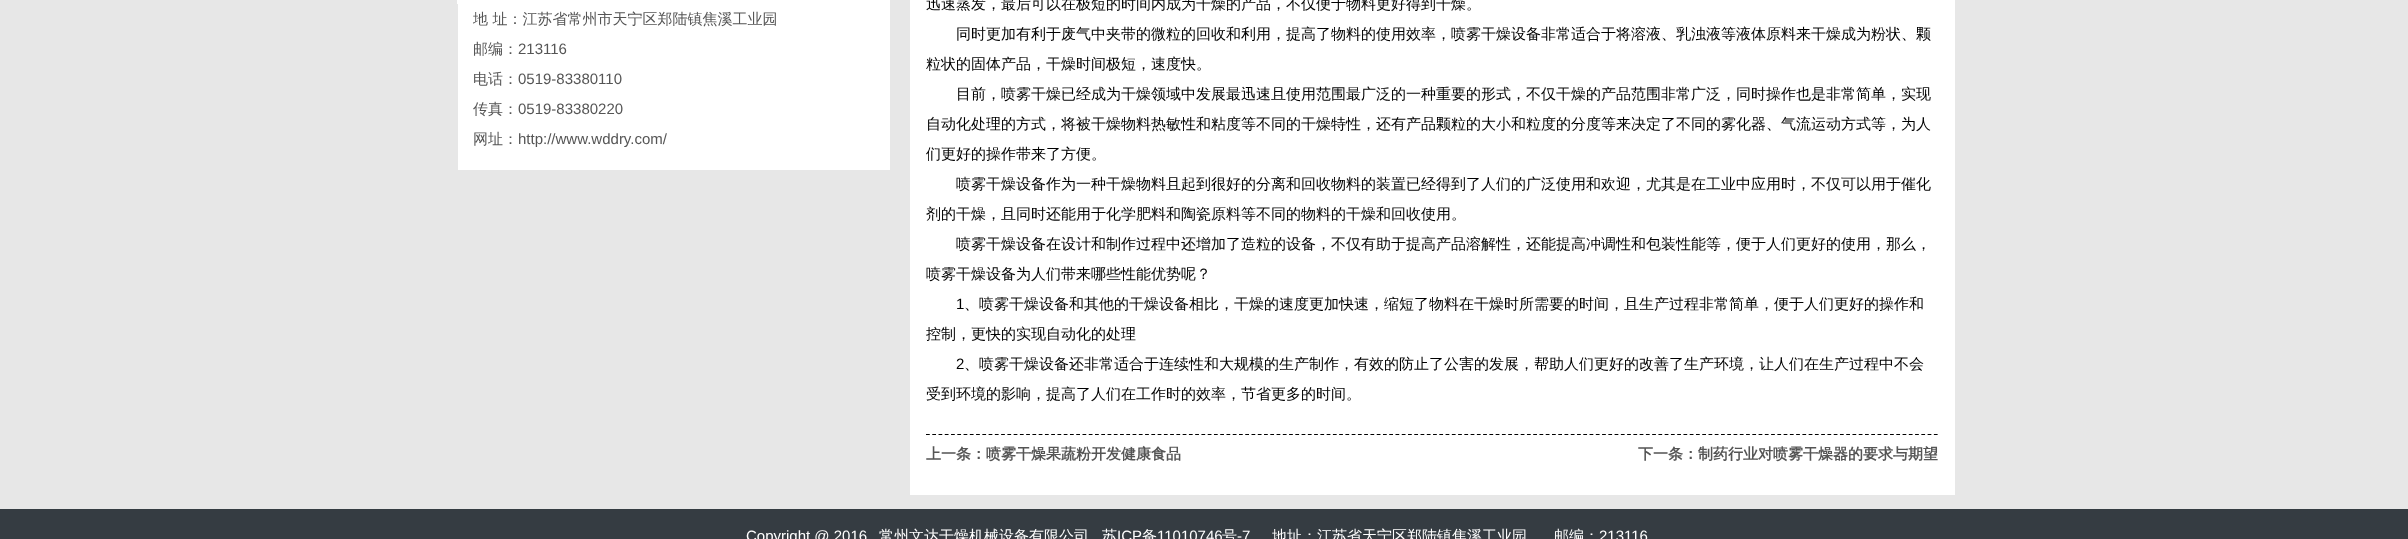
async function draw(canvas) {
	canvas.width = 2408;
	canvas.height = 539;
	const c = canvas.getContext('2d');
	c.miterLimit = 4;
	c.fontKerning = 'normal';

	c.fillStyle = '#e7e7e7';
	c.fillRect(0, 0, 2408, 539);
	c.fillStyle = '#fff';
	c.fillRect(457, 0, 433, 4);
	c.fillRect(458, 4, 432, 166);
	c.font = '500 15px WenQuanYi Zen Hei';
	c.fillStyle = '#555';
	c.fillText('地 址：江苏省常州市天宁区郑陆镇焦溪工业园', 473, 24);
	c.fillText('邮编：', 473, 54);
	c.font = '15px Liberation Sans';
	c.fillText('213116', 518, 54);
	c.font = '500 15px WenQuanYi Zen Hei';
	c.fillText('电话：', 473, 84);
	c.font = '15px Liberation Sans';
	c.fillText('0519-83380110', 518, 84);
	c.font = '500 15px WenQuanYi Zen Hei';
	c.fillText('传真：', 473, 114);
	c.font = '15px Liberation Sans';
	c.fillText('0519-83380220', 518, 114);
	c.font = '500 15px WenQuanYi Zen Hei';
	c.fillText('网址：', 473, 144);
	c.font = '15px Liberation Sans';
	c.fillText('http://www.wddry.com/', 518, 144);
	c.fillStyle = '#fff';
	c.fillRect(910, 0, 1045, 495);
	c.font = '500 15px WenQuanYi Zen Hei';
	c.fillStyle = '#000';
	for (const [text, x, y] of [
		['迅速蒸发，最后可以在极短的时间内成为干燥的产品，不仅便于物料更好得到干燥。', 926, 9],
		['同时更加有利于废气中夹带的微粒的回收和利用，提高了物料的使用效率，喷雾干燥设备非常适合于将溶液、乳浊液等液体原料来干燥成为粉状、颗', 956, 39],
		['粒状的固体产品，干燥时间极短，速度快。', 926, 69],
		['目前，喷雾干燥已经成为干燥领域中发展最迅速且使用范围最广泛的一种重要的形式，不仅干燥的产品范围非常广泛，同时操作也是非常简单，实现', 956, 99],
		['自动化处理的方式，将被干燥物料热敏性和粘度等不同的干燥特性，还有产品颗粒的大小和粒度的分度等来决定了不同的雾化器、气流运动方式等，为人', 926, 129],
		['们更好的操作带来了方便。', 926, 159],
		['喷雾干燥设备作为一种干燥物料且起到很好的分离和回收物料的装置已经得到了人们的广泛使用和欢迎，尤其是在工业中应用时，不仅可以用于催化', 956, 189],
		['剂的干燥，且同时还能用于化学肥料和陶瓷原料等不同的物料的干燥和回收使用。', 926, 219],
		['喷雾干燥设备在设计和制作过程中还增加了造粒的设备，不仅有助于提高产品溶解性，还能提高冲调性和包装性能等，便于人们更好的使用，那么，', 956, 249],
		['喷雾干燥设备为人们带来哪些性能优势呢？', 926, 279],
	]) {
		c.fillText(text, x, y);
	}
	c.font = '15px Liberation Sans';
	c.fillText('1', 956, 309);
	c.font = '500 15px WenQuanYi Zen Hei';
	c.fillText('、喷雾干燥设备和其他的干燥设备相比，干燥的速度更加快速，缩短了物料在干燥时所需要的时间，且生产过程非常简单，便于人们更好的操作和', 964, 309);
	c.fillText('控制，更快的实现自动化的处理', 926, 339);
	c.font = '15px Liberation Sans';
	c.fillText('2', 956, 369);
	c.font = '500 15px WenQuanYi Zen Hei';
	c.fillText('、喷雾干燥设备还非常适合于连续性和大规模的生产制作，有效的防止了公害的发展，帮助人们更好的改善了生产环境，让人们在生产过程中不会', 964, 369);
	c.fillText('受到环境的影响，提高了人们在工作时的效率，节省更多的时间。', 926, 399);
	c.beginPath();
	c.moveTo(926, 434.5);
	c.lineTo(1939, 434.5);
	c.strokeStyle = '#000';
	c.lineWidth = 1.2;
	c.setLineDash([3.75, 2.51]);
	c.stroke();
	c.font = 'bold 15px WenQuanYi Zen Hei';
	c.fillStyle = '#555';
	c.fillText('上一条：喷雾干燥果蔬粉开发健康食品', 926, 459);
	c.fillText('下一条：制药行业对喷雾干燥器的要求与期望', 1638, 459);
	c.fillStyle = '#353c42';
	c.fillRect(0, 509, 2408, 30);
	c.font = '15px Liberation Sans';
	c.fillStyle = '#fff';
	c.fillText('Copyright @ 2016', 746, 541);
	c.font = '500 15px WenQuanYi Zen Hei';
	c.fillText('常州文达干燥机械设备有限公司', 879, 541);
	c.fillText('苏', 1102, 541);
	c.font = '15px Liberation Sans';
	c.fillText('ICP', 1117, 541);
	c.font = '500 15px WenQuanYi Zen Hei';
	c.fillText('备', 1142, 541);
	c.font = '15px Liberation Sans';
	c.fillText('11010746', 1157, 541);
	c.font = '500 15px WenQuanYi Zen Hei';
	c.fillText('号', 1222, 541);
	c.font = '15px Liberation Sans';
	c.fillText('-7', 1237, 541);
	c.font = '500 15px WenQuanYi Zen Hei';
	c.fillText('地址：江苏省天宁区郑陆镇焦溪工业园', 1272, 541);
	c.fillText('邮编：', 1554, 541);
	c.font = '15px Liberation Sans';
	c.fillText('213116', 1599, 541);
}

draw(document.querySelector('canvas'));
